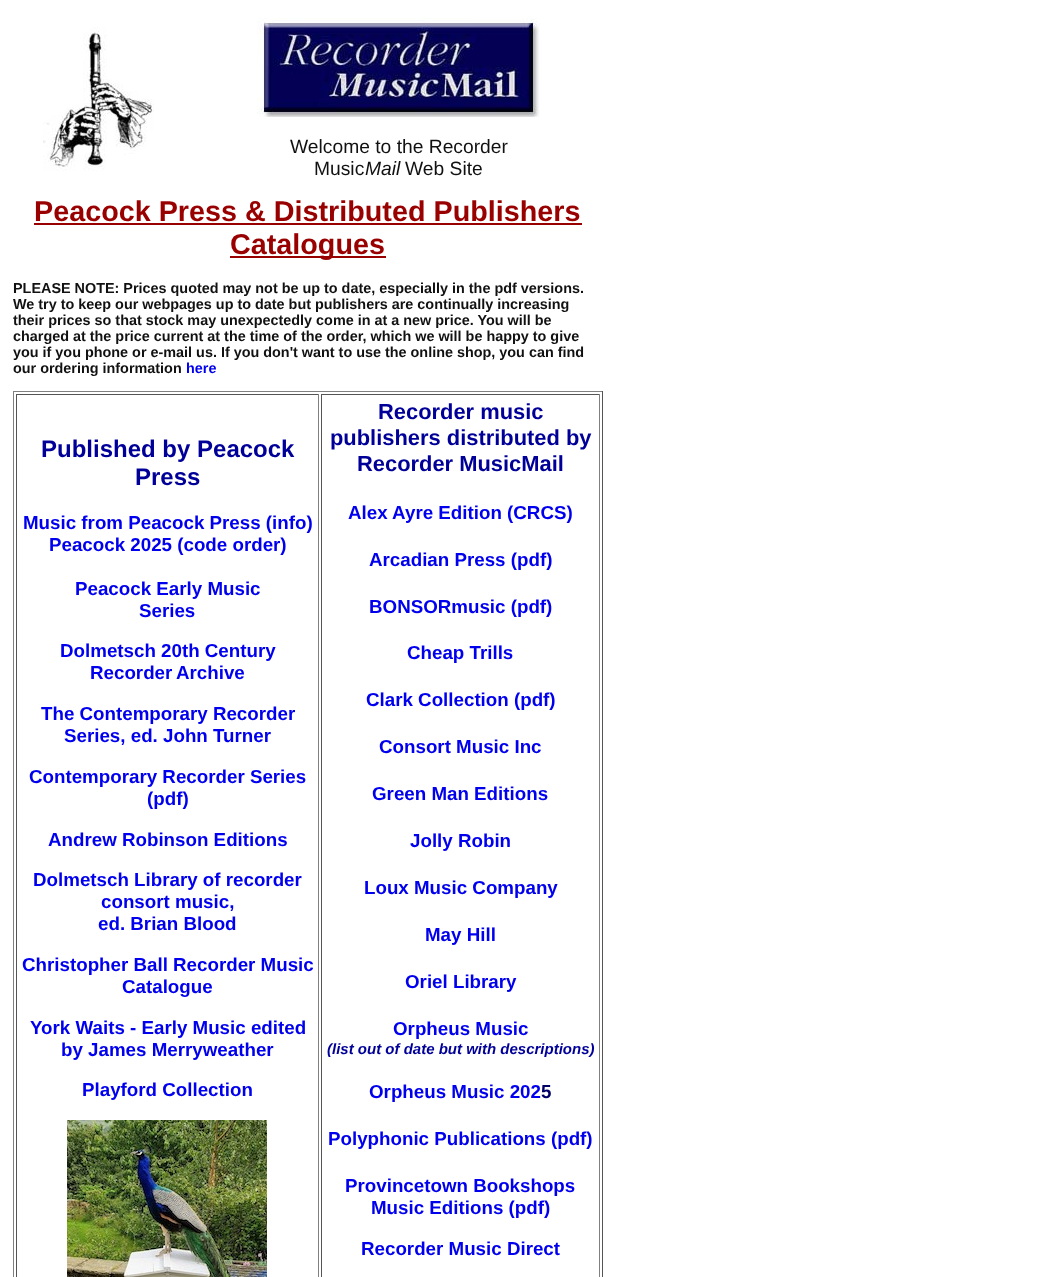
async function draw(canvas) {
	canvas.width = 1062;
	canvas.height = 1277;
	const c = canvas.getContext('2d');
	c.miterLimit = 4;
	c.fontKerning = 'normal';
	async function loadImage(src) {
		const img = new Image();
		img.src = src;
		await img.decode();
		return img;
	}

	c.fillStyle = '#fff';
	c.fillRect(0, 0, 1062, 1277);
	c.drawImage(await loadImage('img1.png'), 43, 27, 111, 144);
	c.drawImage(await loadImage('img2.png'), 257, 18, 283, 99);
	c.font = '19.25px Liberation Sans';
	c.fillStyle = '#111';
	c.fillText('Welcome to the Recorder', 290, 153);
	c.fillText('Music', 314, 175);
	c.font = 'italic 19.25px Liberation Sans';
	c.fillText('Mail', 365, 175);
	c.font = '19.25px Liberation Sans';
	c.fillText('Web Site', 405, 175);
	c.font = 'bold 28.75px Liberation Sans';
	c.fillStyle = '#900';
	c.fillText('Peacock Press & Distributed Publishers', 34, 221);
	c.fillRect(34, 223, 548, 2);
	c.fillRect(230, 256, 156, 2);
	c.fillText('Catalogues', 230, 254);
	c.font = 'bold 14.4px Liberation Sans';
	c.fillStyle = '#111';
	for (const [text, x, y] of [
		['PLEASE NOTE: Prices quoted may not be up to date, especially in the pdf versions.', 13, 293],
		['We try to keep our webpages up to date but publishers are continually increasing', 13, 309],
		['their prices so that stock may unexpectedly come in at a new price. You will be', 13, 325],
		['charged at the price current at the time of the order, which we will be happy to give', 13, 341],
		['you if you phone or e-mail us. If you don\'t want to use the online shop, you can find', 13, 357],
		['our ordering information', 13, 373],
	]) {
		c.fillText(text, x, y);
	}
	c.fillStyle = '#00e';
	c.fillText('here', 186, 373);
	for (const [x, y, w, h, color] of [
		[13, 391, 590, 1, '#808080'],
		[602, 391, 1, 886, '#555'],
		[13, 391, 1, 886, '#808080'],
		[16, 394, 303, 1, '#555'],
		[318, 394, 1, 883, '#808080'],
		[16, 394, 1, 883, '#555'],
	]) {
		c.fillStyle = color;
		c.fillRect(x, y, w, h);
	}
	c.font = 'bold 24px Liberation Sans';
	c.fillStyle = '#009';
	c.fillText('Published by Peacock', 41, 457);
	c.fillText('Press', 135, 485);
	c.font = 'bold 18.75px Liberation Sans';
	c.fillStyle = '#00e';
	for (const [text, x, y] of [
		['Music from Peacock Press (info)', 23, 529],
		['Peacock 2025 (code order)', 49, 551],
		['Peacock Early Music', 75, 595],
		['Series', 139, 617],
		['Dolmetsch 20th Century', 60, 657],
		['Recorder', 90, 679],
		['Archive', 176, 679],
		['The Contemporary Recorder', 41, 720],
		['Series, ed. John Turner', 64, 742],
		['Contemporary Recorder Series', 29, 783],
		['(pdf)', 147, 805],
		['Andrew Robinson Editions', 48, 846],
		['Dolmetsch Library of recorder', 33, 886],
		['consort music,', 101, 908],
		['ed. Brian Blood', 98, 930],
		['Christopher Ball Recorder Music', 22, 971],
		['Catalogue', 122, 993],
		['York Waits - Early Music edited', 30, 1034],
		['by James Merryweather', 61, 1056],
		['Playford Collection', 82, 1096],
	]) {
		c.fillText(text, x, y);
	}
	c.drawImage(await loadImage('img3.png'), 67, 1120, 200, 157);
	for (const [x, y, w, h, color] of [
		[321, 394, 279, 1, '#555'],
		[599, 394, 1, 883, '#808080'],
		[321, 394, 1, 883, '#555'],
	]) {
		c.fillStyle = color;
		c.fillRect(x, y, w, h);
	}
	c.font = 'bold 21.9px Liberation Sans';
	c.fillStyle = '#009';
	for (const [text, x, y] of [
		['Recorder music', 378, 419],
		['publishers distributed by', 330, 445],
		['Recorder MusicMail', 357, 471],
	]) {
		c.fillText(text, x, y);
	}
	c.font = 'bold 18.75px Liberation Sans';
	c.fillStyle = '#00e';
	for (const [text, x, y] of [
		['Alex Ayre Edition (CRCS)', 348, 519],
		['Arcadian Press (pdf)', 369, 566],
		['BONSORmusic (pdf)', 369, 613],
		['Cheap Trills', 407, 659],
		['Clark Collection (pdf)', 366, 706],
		['Consort Music Inc', 379, 753],
		['Green Man Editions', 372, 800],
		['Jolly Robin', 410, 847],
		['Loux Music Company', 364, 894],
		['May Hill', 425, 941],
		['Oriel Library', 405, 988],
		['Orpheus Music', 393, 1035],
	]) {
		c.fillText(text, x, y);
	}
	c.font = 'italic bold 15px Liberation Sans';
	c.fillStyle = '#009';
	c.fillText('(list out of date but with descriptions)', 327, 1054);
	c.font = 'bold 18.75px Liberation Sans';
	c.fillStyle = '#00e';
	c.fillText('Orpheus Music 202', 369, 1098);
	c.fillStyle = '#006';
	c.fillText('5', 541, 1098);
	c.fillStyle = '#00e';
	for (const [text, x, y] of [
		['Polyphonic Publications (pdf)', 328, 1145],
		['Provincetown Bookshops', 345, 1192],
		['Music Editions (pdf)', 371, 1214],
		['Recorder Music Direct', 361, 1255],
	]) {
		c.fillText(text, x, y);
	}
}

draw(document.querySelector('canvas'));
